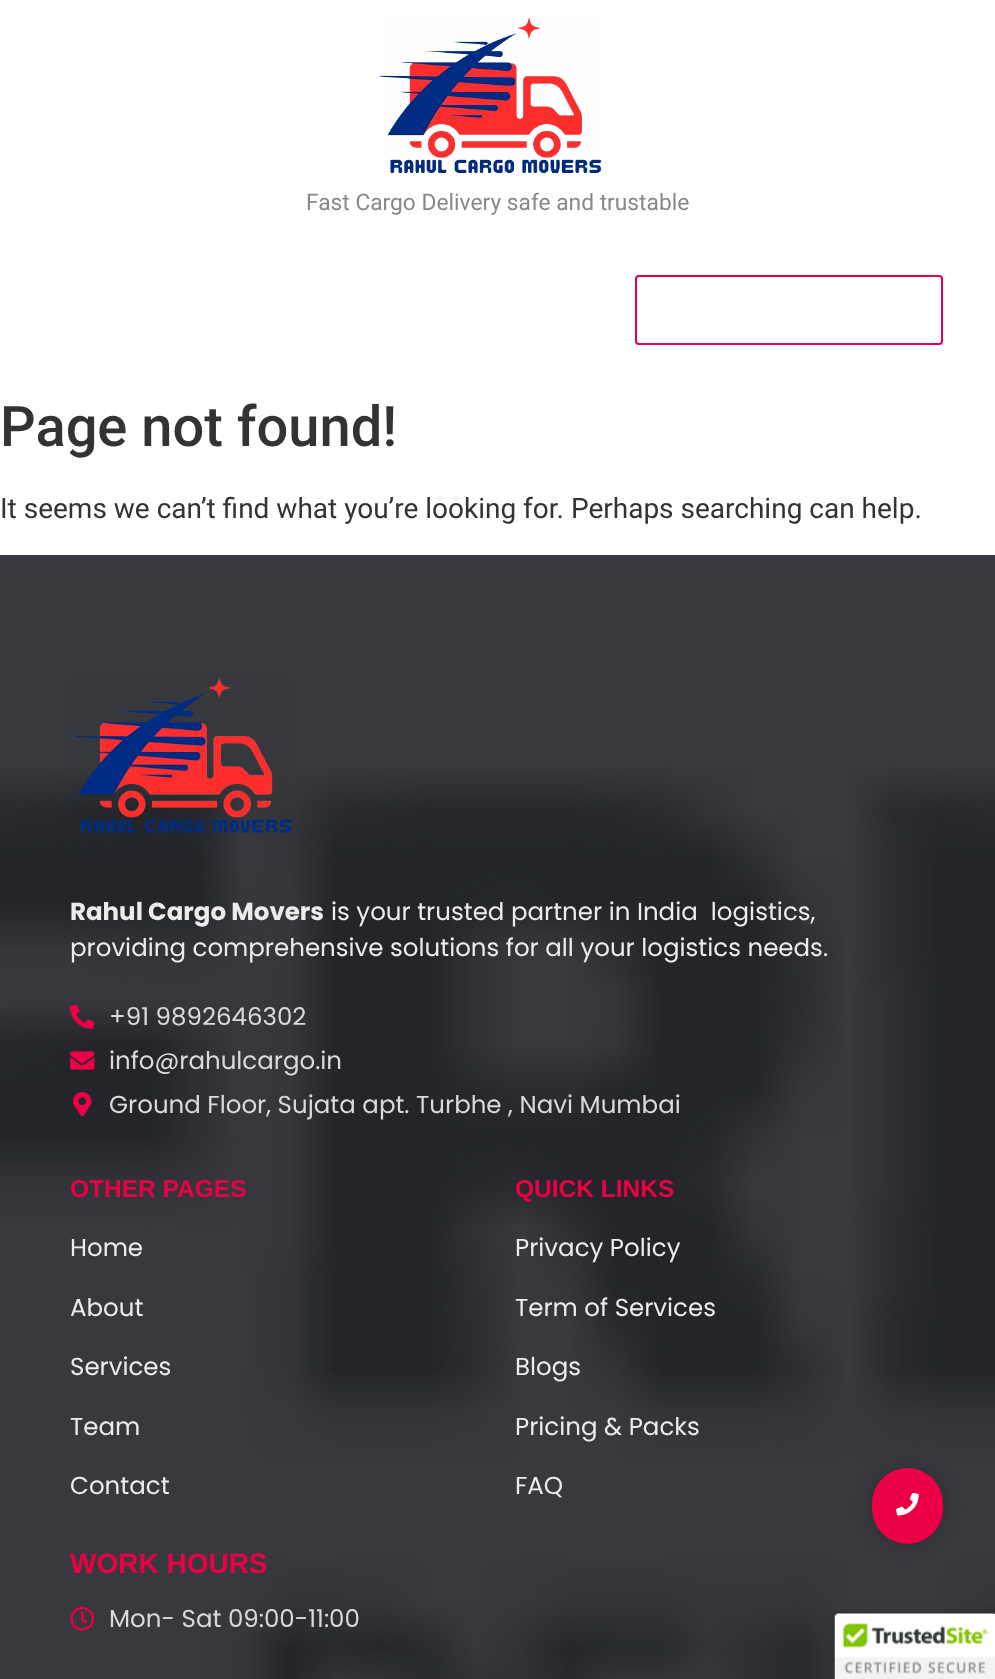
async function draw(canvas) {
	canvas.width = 995;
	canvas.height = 1679;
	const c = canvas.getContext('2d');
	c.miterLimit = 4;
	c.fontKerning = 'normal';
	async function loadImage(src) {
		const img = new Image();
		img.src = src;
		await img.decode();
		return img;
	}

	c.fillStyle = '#fff';
	c.fillRect(0, 0, 995, 1679);
	c.fillStyle = '#38393e';
	c.fillRect(0, 555, 995, 1124);
	c.drawImage(await loadImage('img1.png'), 379, 17, 223, 156);
	c.font = '22.75px Roboto';
	c.fillStyle = '#888';
	c.fillText('Fast Cargo Delivery safe and trustable', 306, 210);
	c.beginPath();
	c.roundRect(636, 276, 306, 68, 3);
	c.strokeStyle = '#eb0046';
	c.lineWidth = 2;
	c.stroke();
	c.font = '500 56px Roboto';
	c.fillStyle = '#333';
	c.fillText('Page not found!', 0, 446);
	c.font = '28px Roboto';
	c.fillText('It seems we can’t find what you’re looking for. Perhaps searching can help.', 0, 518);
	c.drawImage(await loadImage('img2.png'), 0, 767, 995, 912);
	c.drawImage(await loadImage('img3.png'), 70, 677, 222, 156);
	c.font = 'bold 24.5px Poppins';
	c.fillStyle = '#ececec';
	c.fillText('Rahul Cargo Movers', 70, 920);
	c.font = '24.5px Poppins';
	c.fillText('is your trusted partner in India  logistics,', 331, 920);
	c.fillText('providing comprehensive solutions for all your logistics needs.', 70, 956);
	c.drawImage(await loadImage('img4.png'), 70, 1005, 25, 24);
	c.fillStyle = '#dadada';
	c.fillText('+91 9892646302', 109, 1025);
	c.drawImage(await loadImage('img5.png'), 70, 1051, 25, 19);
	c.fillText('info@rahulcargo.in', 109, 1069);
	c.drawImage(await loadImage('img6.png'), 73, 1092, 19, 25);
	c.fillText('Ground Floor, Sujata apt. Turbhe , Navi Mumbai', 109, 1113);
	c.font = 'bold 24.5px Liberation Sans';
	c.fillStyle = '#eb0046';
	c.fillText('OTHER PAGES', 70, 1197);
	c.font = '24.5px Poppins';
	c.fillStyle = '#ececec';
	for (const [text, x, y] of [
		['Home', 70, 1256],
		['About', 70, 1316],
		['Services', 70, 1375],
		['Team', 70, 1435],
		['Contact', 70, 1494],
	]) {
		c.fillText(text, x, y);
	}
	c.font = 'bold 24.5px Liberation Sans';
	c.fillStyle = '#eb0046';
	c.fillText('QUICK LINKS', 515, 1197);
	c.font = '24.5px Poppins';
	c.fillStyle = '#ececec';
	for (const [text, x, y] of [
		['Privacy Policy', 515, 1256],
		['Term of Services', 515, 1316],
		['Blogs', 515, 1375],
		['Pricing & Packs', 515, 1435],
		['FAQ', 515, 1494],
	]) {
		c.fillText(text, x, y);
	}
	c.font = 'bold 28px Liberation Sans';
	c.fillStyle = '#eb0046';
	c.fillText('WORK HOURS', 70, 1573);
	c.drawImage(await loadImage('img7.png'), 70, 1607, 25, 24);
	c.font = '24.5px Poppins';
	c.fillStyle = '#dadada';
	c.fillText('Mon- Sat 09:00-11:00', 109, 1627);
	c.fillStyle = '#00000033';
	c.filter = 'blur(9px)';
	c.beginPath();
	c.roundRect(872, 1468, 71, 76, 35.5);
	c.fill();
	c.filter = 'none';
	c.fillStyle = '#eb0046';
	c.beginPath();
	c.roundRect(872, 1468, 71, 76, 35.5);
	c.fill();
	c.drawImage(await loadImage('img8.png'), 896, 1493, 23, 23);
	c.fillStyle = '#00000033';
	c.filter = 'blur(4.5px)';
	c.beginPath();
	c.roundRect(835, 1614, 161, 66, 4);
	c.fill();
	c.filter = 'none';
	c.fillStyle = '#fff';
	c.beginPath();
	c.moveTo(839, 1614);
	c.lineTo(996, 1614);
	c.lineTo(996, 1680);
	c.lineTo(835, 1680);
	c.lineTo(835, 1618);
	c.bezierCurveTo(835, 1616, 837, 1614, 839, 1614);
	c.closePath();
	c.fill();
	c.drawImage(await loadImage('img9.png'), 834, 1613, 161, 66);
}

draw(document.querySelector('canvas'));
